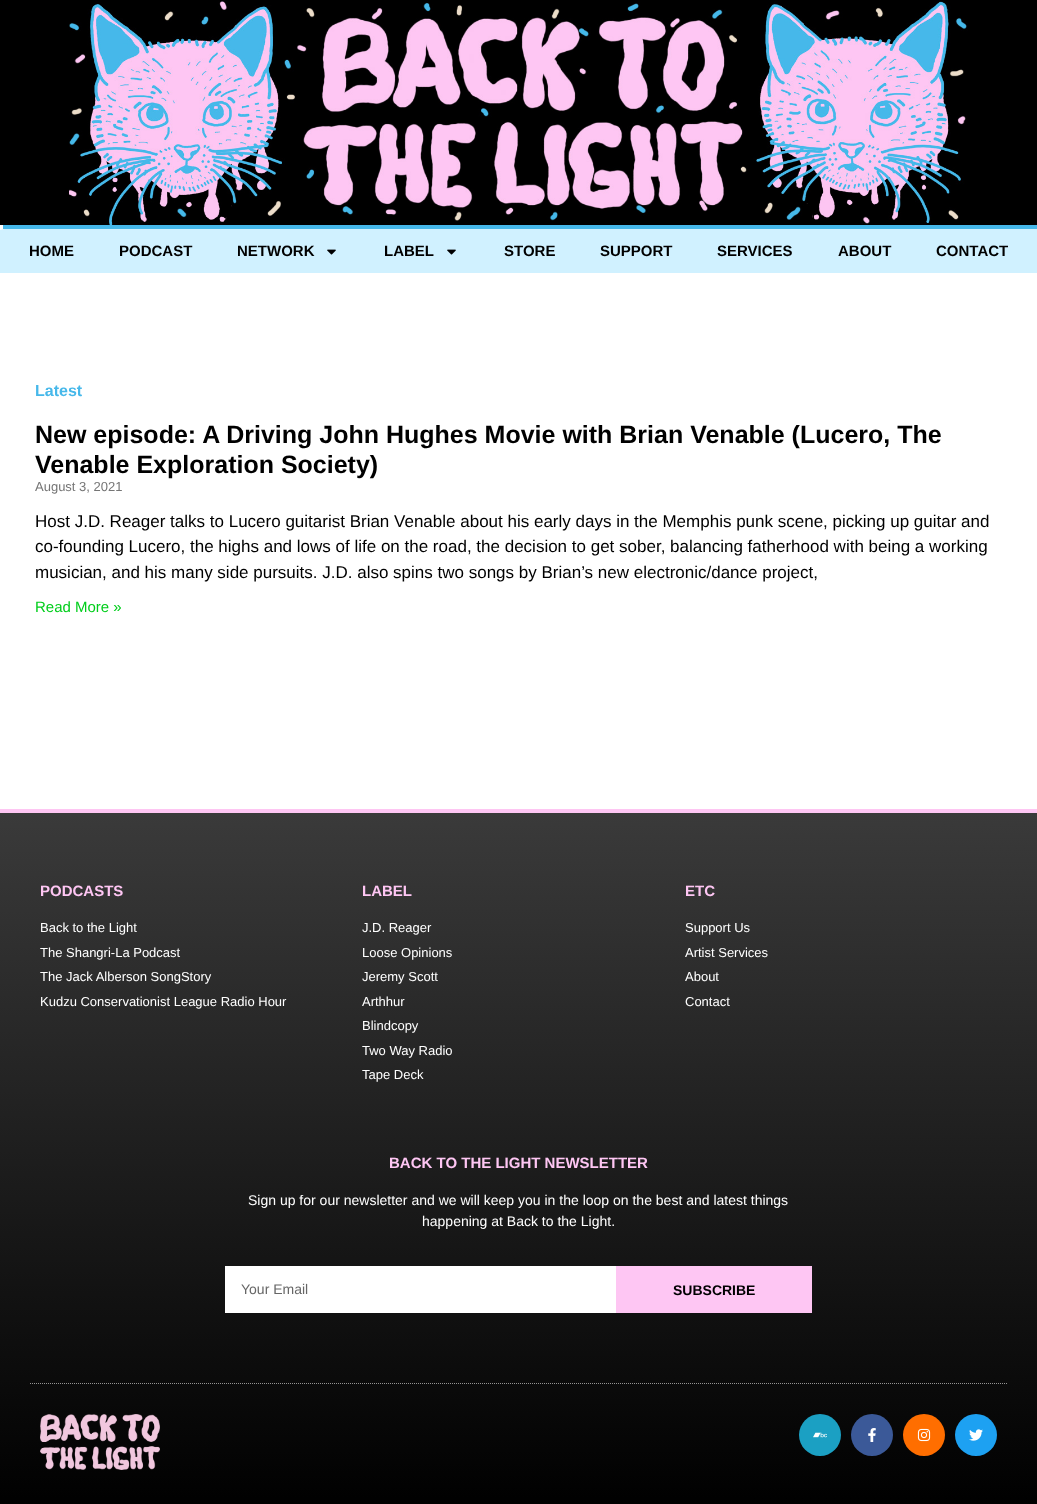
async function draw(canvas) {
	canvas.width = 1037;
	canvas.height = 1504;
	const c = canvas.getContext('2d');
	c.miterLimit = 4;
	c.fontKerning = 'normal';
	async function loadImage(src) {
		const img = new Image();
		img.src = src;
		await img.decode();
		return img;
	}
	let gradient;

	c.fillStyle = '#fff';
	c.fillRect(0, 0, 1037, 1504);
	c.fillStyle = '#000';
	c.fillRect(0, 0, 1037, 225);
	c.drawImage(await loadImage('img1.png'), 69, 1, 899, 224);
	c.fillStyle = '#d0f1ff';
	c.beginPath();
	c.moveTo(5, 229);
	c.lineTo(1037, 229);
	c.lineTo(1037, 273);
	c.lineTo(0, 273);
	c.lineTo(0, 230);
	c.closePath();
	c.fill();
	c.fillStyle = '#46b8ea';
	c.fillRect(3, 225, 1034, 4);
	c.font = 'bold 15px Liberation Sans';
	c.fillStyle = '#000';
	for (const [text, x, y] of [
		['HOME', 29, 256],
		['PODCAST', 119, 256],
		['NETWORK', 237, 256],
	]) {
		c.fillText(text, x, y);
	}
	c.drawImage(await loadImage('img2.png'), 327, 249, 9, 6);
	c.fillText('LABEL', 384, 256);
	c.drawImage(await loadImage('img2.png'), 447, 249, 9, 6);
	for (const [text, x, y] of [
		['STORE', 504, 256],
		['SUPPORT', 600, 256],
		['SERVICES', 717, 256],
		['ABOUT', 838, 256],
		['CONTACT', 936, 256],
	]) {
		c.fillText(text, x, y);
	}
	c.font = 'bold 16px Liberation Sans';
	c.fillStyle = '#46b8ea';
	c.fillText('Latest', 35, 396);
	c.font = 'bold 25px Liberation Sans';
	c.fillStyle = '#000';
	c.fillText('New episode: A Driving John Hughes Movie with Brian Venable (Lucero, The', 35, 443);
	c.fillText('Venable Exploration Society)', 35, 473);
	c.font = '13px Liberation Sans';
	c.fillStyle = '#757575';
	c.fillText('August 3, 2021', 35, 491);
	c.font = '17px Liberation Sans';
	c.fillStyle = '#000';
	for (const [text, x, y] of [
		['Host J.D. Reager talks to Lucero guitarist Brian Venable about his early days in the Memphis punk scene, picking up guitar and', 35, 527],
		['co-founding Lucero, the highs and lows of life on the road, the decision to get sober, balancing fatherhood with being a working', 35, 552],
		['musician, and his many side pursuits. J.D. also spins two songs by Brian’s new electronic/dance project,', 35, 578],
	]) {
		c.fillText(text, x, y);
	}
	c.font = '15px Liberation Sans';
	c.fillStyle = '#00ce1b';
	c.fillText('Read More »', 35, 612);
	gradient = c.createLinearGradient(519, 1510, 518, 813);
	gradient.addColorStop(0, '#000');
	gradient.addColorStop(1, '#3a3a3a');
	c.fillStyle = gradient;
	c.fillRect(0, 813, 1037, 691);
	c.fillStyle = '#fec6f3';
	c.fillRect(0, 809, 1037, 4);
	c.font = 'bold 15px Liberation Sans';
	c.fillText('PODCASTS', 40, 896);
	c.font = '13px Liberation Sans';
	c.fillStyle = '#fff';
	for (const [text, x, y] of [
		['Back to the Light', 40, 932],
		['The Shangri-La Podcast', 40, 957],
		['The Jack Alberson SongStory', 40, 981],
		['Kudzu Conservationist League Radio Hour', 40, 1006],
	]) {
		c.fillText(text, x, y);
	}
	c.font = 'bold 15px Liberation Sans';
	c.fillStyle = '#fec6f3';
	c.fillText('LABEL', 362, 896);
	c.font = '13px Liberation Sans';
	c.fillStyle = '#fff';
	for (const [text, x, y] of [
		['J.D. Reager', 362, 932],
		['Loose Opinions', 362, 957],
		['Jeremy Scott', 362, 981],
		['Arthhur', 362, 1006],
		['Blindcopy', 362, 1030],
		['Two Way Radio', 362, 1055],
		['Tape Deck', 362, 1079],
	]) {
		c.fillText(text, x, y);
	}
	c.font = 'bold 15px Liberation Sans';
	c.fillStyle = '#fec6f3';
	c.fillText('ETC', 685, 896);
	c.font = '13px Liberation Sans';
	c.fillStyle = '#fff';
	for (const [text, x, y] of [
		['Support Us', 685, 932],
		['Artist Services', 685, 957],
		['About', 685, 981],
		['Contact', 685, 1006],
	]) {
		c.fillText(text, x, y);
	}
	c.font = 'bold 15px Liberation Sans';
	c.fillStyle = '#fec6f3';
	c.fillText('BACK TO THE LIGHT NEWSLETTER', 389, 1168);
	c.font = '14px Liberation Sans';
	c.fillStyle = '#fff';
	c.fillText('Sign up for our newsletter and we will keep you in the loop on the best and latest things', 248, 1205);
	c.fillText('happening at Back to the Light.', 422, 1226);
	c.fillRect(225, 1266, 391, 47);
	c.fillStyle = '#666';
	c.fillText('Your Email', 241, 1294);
	c.fillStyle = '#fec6f3';
	c.fillRect(616, 1266, 196, 47);
	c.font = 'bold 14px Liberation Sans';
	c.fillStyle = '#000';
	c.fillText('SUBSCRIBE', 673, 1295);
	c.beginPath();
	c.moveTo(30, 1383.5);
	c.lineTo(1007, 1383.5);
	c.strokeStyle = '#949494';
	c.setLineDash([1, 1]);
	c.stroke();
	c.drawImage(await loadImage('img3.png'), 40, 1414, 120, 56);
	c.fillStyle = '#1ba0c3';
	c.beginPath();
	c.arc(820, 1435, 21, 0, 2 * Math.PI);
	c.fill();
	c.drawImage(await loadImage('img4.png'), 813, 1432, 14, 6);
	c.fillStyle = '#3b5998';
	c.beginPath();
	c.arc(872, 1435, 21, 0, 2 * Math.PI);
	c.fill();
	c.drawImage(await loadImage('img5.png'), 868, 1428, 8, 14);
	c.fillStyle = '#ff6e00';
	c.beginPath();
	c.arc(924, 1435, 21, 0, 2 * Math.PI);
	c.fill();
	c.drawImage(await loadImage('img6.png'), 917, 1428, 14, 14);
	c.fillStyle = '#1da1f2';
	c.beginPath();
	c.arc(976, 1435, 21, 0, 2 * Math.PI);
	c.fill();
	c.drawImage(await loadImage('img7.png'), 969, 1429, 14, 12);
}

draw(document.querySelector('canvas'));
